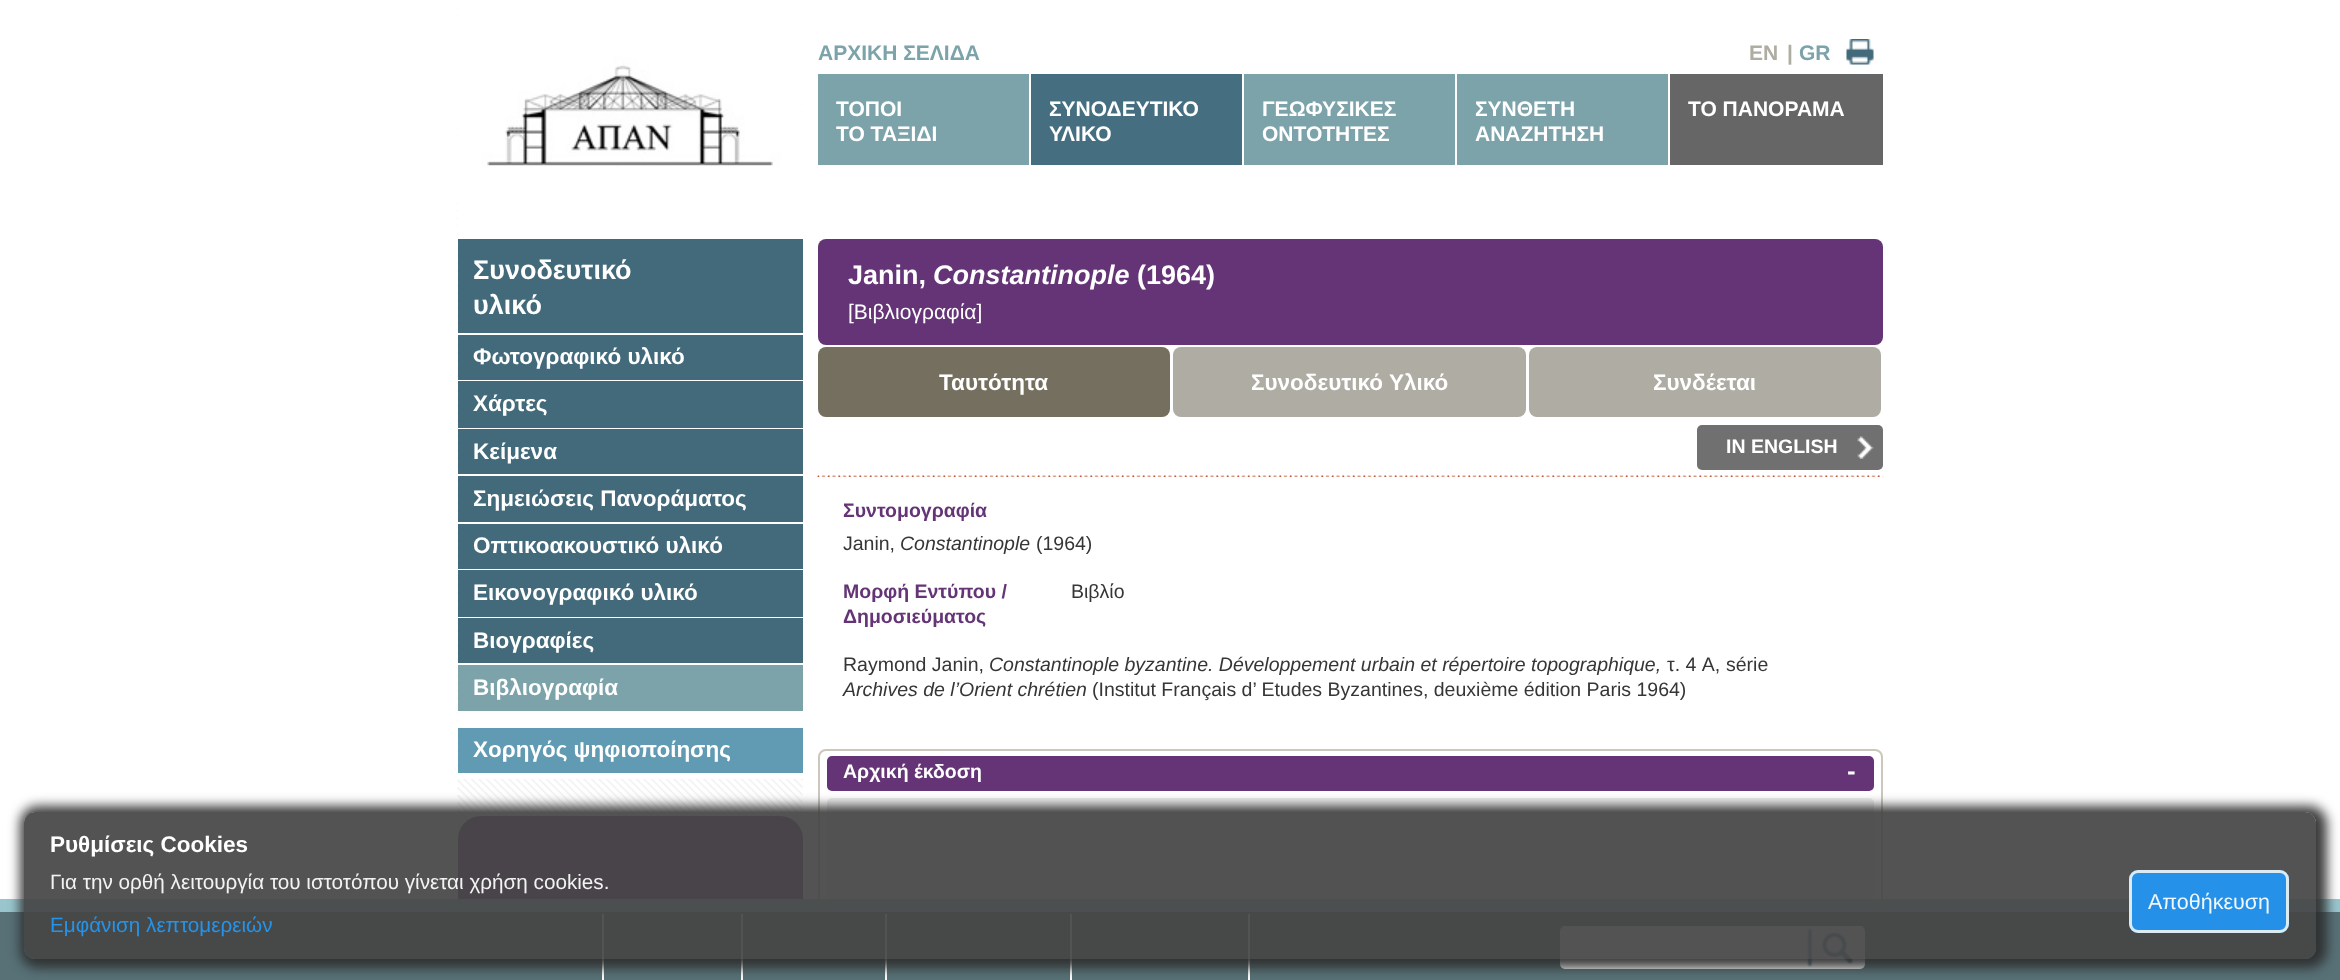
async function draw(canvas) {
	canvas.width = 2340;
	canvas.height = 980;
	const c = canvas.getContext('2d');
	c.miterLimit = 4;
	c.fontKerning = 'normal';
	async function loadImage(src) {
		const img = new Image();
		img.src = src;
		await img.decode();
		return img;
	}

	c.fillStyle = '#fff';
	c.fillRect(0, 0, 2340, 980);
	c.drawImage(await loadImage('img1.png'), 457, 0, 346, 899);
	c.drawImage(await loadImage('img2.png'), 457, 0, 346, 201);
	c.font = 'bold 21px Liberation Sans';
	c.fillStyle = '#7ca3aa';
	c.fillText('ΑΡΧΙΚΗ ΣΕΛΙΔΑ', 818, 60);
	c.fillStyle = '#afaca2';
	c.fillText('EN', 1749, 60);
	c.fillText('|', 1787, 60);
	c.fillStyle = '#7ca3aa';
	c.fillText('GR', 1799, 60);
	c.drawImage(await loadImage('img3.png'), 1846, 39, 28, 26);
	c.fillStyle = '#666';
	c.fillRect(1670, 74, 213, 91);
	c.fillStyle = '#7ca3aa';
	c.fillRect(818, 74, 211, 91);
	c.fillStyle = '#fff';
	c.fillText('ΤΟΠΟΙ', 836, 116);
	c.fillText('ΤΟ ΤΑΞΙΔΙ', 836, 141);
	c.fillStyle = '#456f80';
	c.fillRect(1031, 74, 211, 91);
	c.fillStyle = '#fff';
	c.fillText('ΣΥΝΟΔΕΥΤΙΚΟ', 1049, 116);
	c.fillText('ΥΛΙΚΟ', 1049, 141);
	c.fillStyle = '#7ca3aa';
	c.fillRect(1244, 74, 211, 91);
	c.fillStyle = '#fff';
	c.fillText('ΓΕΩΦΥΣΙΚΕΣ', 1262, 116);
	c.fillText('ΟΝΤΟΤΗΤΕΣ', 1262, 141);
	c.fillStyle = '#7ca3aa';
	c.fillRect(1457, 74, 211, 91);
	c.fillStyle = '#fff';
	for (const [text, x, y] of [
		['ΣΥΝΘΕΤΗ', 1475, 116],
		['ΑΝΑΖΗΤΗΣΗ', 1475, 141],
		['ΤΟ ΠΑΝΟΡΑΜΑ', 1688, 116],
	]) {
		c.fillText(text, x, y);
	}
	for (const [x, y, w, h, color] of [
		[458, 201, 345, 38, '#fff'],
		[458, 333, 345, 446, '#fff'],
		[458, 239, 345, 94, '#426a7b'],
	]) {
		c.fillStyle = color;
		c.fillRect(x, y, w, h);
	}
	c.font = 'bold 27px Liberation Sans';
	c.fillStyle = '#fff';
	c.fillText('Συνοδευτικό', 473, 279);
	c.fillText('υλικό', 473, 314);
	c.fillStyle = '#426a7b';
	c.fillRect(458, 335, 345, 45);
	c.font = 'bold 22.5px Liberation Sans';
	c.fillStyle = '#fff';
	c.fillText('Φωτογραφικό υλικό', 473, 364);
	c.fillStyle = '#426a7b';
	c.fillRect(458, 381, 345, 47);
	c.fillStyle = '#fff';
	c.fillText('Χάρτες', 473, 411);
	c.fillStyle = '#426a7b';
	c.fillRect(458, 429, 345, 45);
	c.fillStyle = '#fff';
	c.fillText('Κείμενα', 473, 459);
	c.fillStyle = '#426a7b';
	c.fillRect(458, 476, 345, 46);
	c.fillStyle = '#fff';
	c.fillText('Σημειώσεις Πανοράματος', 473, 506);
	c.fillStyle = '#426a7b';
	c.fillRect(458, 524, 345, 45);
	c.fillStyle = '#fff';
	c.fillText('Οπτικοακουστικό υλικό', 473, 553);
	c.fillStyle = '#426a7b';
	c.fillRect(458, 570, 345, 47);
	c.fillStyle = '#fff';
	c.fillText('Εικονογραφικό υλικό', 473, 600);
	c.fillStyle = '#426a7b';
	c.fillRect(458, 618, 345, 45);
	c.fillStyle = '#fff';
	c.fillText('Βιογραφίες', 473, 648);
	c.fillStyle = '#7ca3aa';
	c.fillRect(458, 665, 345, 46);
	c.fillStyle = '#fff';
	c.fillText('Βιβλιογραφία', 473, 695);
	c.fillStyle = '#619ab3';
	c.fillRect(458, 728, 345, 45);
	c.fillStyle = '#fff';
	c.fillText('Χορηγός ψηφιοποίησης', 473, 757);
	c.fillStyle = '#643476';
	c.beginPath();
	c.roundRect(458, 816, 345, 164, 23);
	c.fill();
	c.beginPath();
	c.roundRect(818, 239, 1065, 106, 8);
	c.fill();
	c.font = 'bold 27px Liberation Sans';
	c.fillStyle = '#fff';
	c.fillText('Janin,', 848, 284);
	c.font = 'italic bold 27px Liberation Sans';
	c.fillText('Constantinople', 933, 284);
	c.font = 'bold 27px Liberation Sans';
	c.fillText('(1964)', 1137, 284);
	c.font = '21px Liberation Sans';
	c.fillText('[Βιβλιογραφία]', 848, 319);
	c.fillStyle = '#756f5f';
	c.beginPath();
	c.roundRect(818, 347, 352, 70, 8);
	c.fill();
	c.font = 'bold 22.5px Liberation Sans';
	c.fillStyle = '#fff';
	c.fillText('Ταυτότητα', 939, 390);
	c.fillStyle = '#afaca3';
	c.beginPath();
	c.roundRect(1173, 347, 353, 70, 8);
	c.fill();
	c.fillStyle = '#fff';
	c.fillText('Συνοδευτικό Υλικό', 1251, 390);
	c.fillStyle = '#afaca3';
	c.beginPath();
	c.roundRect(1529, 347, 352, 70, 8);
	c.fill();
	c.fillStyle = '#fff';
	c.fillText('Συνδέεται', 1653, 390);
	c.drawImage(await loadImage('img4.png'), 817, 475, 1066, 2);
	c.fillStyle = '#707070';
	c.beginPath();
	c.roundRect(1697, 425, 186, 45, 5);
	c.fill();
	c.font = 'bold 19.5px Liberation Sans';
	c.fillStyle = '#fff';
	c.fillText('IN ENGLISH', 1726, 453);
	c.drawImage(await loadImage('img5.png'), 1857, 436, 17, 23);
	c.fillStyle = '#643476';
	c.fillText('Συντομογραφία', 843, 517);
	c.font = '19.5px Liberation Sans';
	c.fillStyle = '#363636';
	c.fillText('Janin,', 843, 550);
	c.font = 'italic 19.5px Liberation Sans';
	c.fillText('Constantinople', 900, 550);
	c.font = '19.5px Liberation Sans';
	c.fillText('(1964)', 1036, 550);
	c.font = 'bold 19.5px Liberation Sans';
	c.fillStyle = '#643476';
	c.fillText('Μορφή Εντύπου /', 843, 598);
	c.fillText('Δημοσιεύματος', 843, 623);
	c.font = '19.5px Liberation Sans';
	c.fillStyle = '#363636';
	c.fillText('Βιβλίο', 1071, 598);
	c.fillText('Raymond Janin,', 843, 671);
	c.font = 'italic 19.5px Liberation Sans';
	c.fillText('Constantinople byzantine. Développement urbain et répertoire topographique,', 989, 671);
	c.font = '19.5px Liberation Sans';
	c.fillText('τ. 4 A,', 1667, 671);
	c.fillText('série', 1726, 671);
	c.font = 'italic 19.5px Liberation Sans';
	c.fillText('Archives de l’Orient chrétien', 843, 696);
	c.font = '19.5px Liberation Sans';
	c.fillText('(Institut Français d’ Etudes Byzantines, deuxième édition Paris 1964)', 1092, 696);
	c.beginPath();
	c.roundRect(819, 750, 1063, 166, 7);
	c.strokeStyle = '#cbc7bc';
	c.lineWidth = 2;
	c.stroke();
	c.fillStyle = '#643476';
	c.beginPath();
	c.roundRect(827, 756, 1047, 35, 5);
	c.fill();
	c.font = 'bold 19.5px Liberation Sans';
	c.fillStyle = '#fff';
	c.fillText('Αρχική έκδοση', 843, 778);
	c.font = 'bold 21px DejaVu Sans Mono';
	c.fillText('-', 1845, 779);
	c.fillStyle = '#ececec';
	c.beginPath();
	c.roundRect(827, 798, 1047, 111, 5);
	c.fill();
	for (const [x, y, w, h, color] of [
		[0, 912, 2340, 68, '#577177'],
		[0, 899, 2340, 13, '#99c6ce'],
		[602, 914, 2, 66, '#fff'],
		[741, 914, 2, 66, '#fff'],
		[885, 914, 2, 66, '#fff'],
		[1070, 914, 2, 66, '#fff'],
		[1248, 914, 2, 66, '#fff'],
	]) {
		c.fillStyle = color;
		c.fillRect(x, y, w, h);
	}
	c.beginPath();
	c.roundRect(1560, 926, 248, 43, [5, 0, 0, 5]);
	c.fill();
	c.beginPath();
	c.roundRect(1808, 926, 57, 43, [0, 5, 5, 0]);
	c.fill();
	c.drawImage(await loadImage('img6.png'), 1807, 928, 47, 39);
	c.save();
	c.beginPath();
	c.moveTo(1, 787);
	c.lineTo(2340, 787);
	c.lineTo(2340, 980);
	c.lineTo(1, 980);
	c.closePath();
	c.moveTo(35, 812);
	c.lineTo(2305, 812);
	c.bezierCurveTo(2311, 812, 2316, 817, 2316, 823);
	c.lineTo(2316, 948);
	c.bezierCurveTo(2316, 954, 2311, 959, 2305, 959);
	c.lineTo(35, 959);
	c.bezierCurveTo(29, 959, 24, 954, 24, 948);
	c.lineTo(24, 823);
	c.bezierCurveTo(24, 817, 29, 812, 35, 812);
	c.closePath();
	c.clip('evenodd');
	c.fillStyle = '#2d2d2ded';
	c.filter = 'blur(6px)';
	c.beginPath();
	c.roundRect(20, 806, 2307, 162, 18);
	c.fill();
	c.filter = 'none';
	c.restore();
	c.fillStyle = '#464646ed';
	c.beginPath();
	c.roundRect(24, 812, 2292, 147, 11);
	c.fill();
	c.font = 'bold 22.5px Liberation Sans';
	c.fillStyle = '#fff';
	c.fillText('Ρυθμίσεις Cookies', 50, 852);
	c.font = '20.7px Liberation Sans';
	c.fillStyle = '#f3f3f3';
	c.fillText('Για την ορθή λειτουργία του ιστοτόπου γίνεται χρήση cookies.', 50, 889);
	c.fillStyle = '#2593ea';
	c.fillText('Eμφάνιση λεπτομερειών', 50, 932);
	c.fillStyle = '#2196f3ed';
	c.beginPath();
	c.roundRect(2129, 870, 160, 63, 9);
	c.fill();
	c.beginPath();
	c.roundRect(2130.5, 871.5, 157, 60, 7.5);
	c.strokeStyle = '#ebf1f2ed';
	c.lineWidth = 3;
	c.stroke();
	c.font = '21.5px Liberation Sans';
	c.fillStyle = '#f0f7fd';
	c.fillText('Αποθήκευση', 2148, 909);
}

draw(document.querySelector('canvas'));
